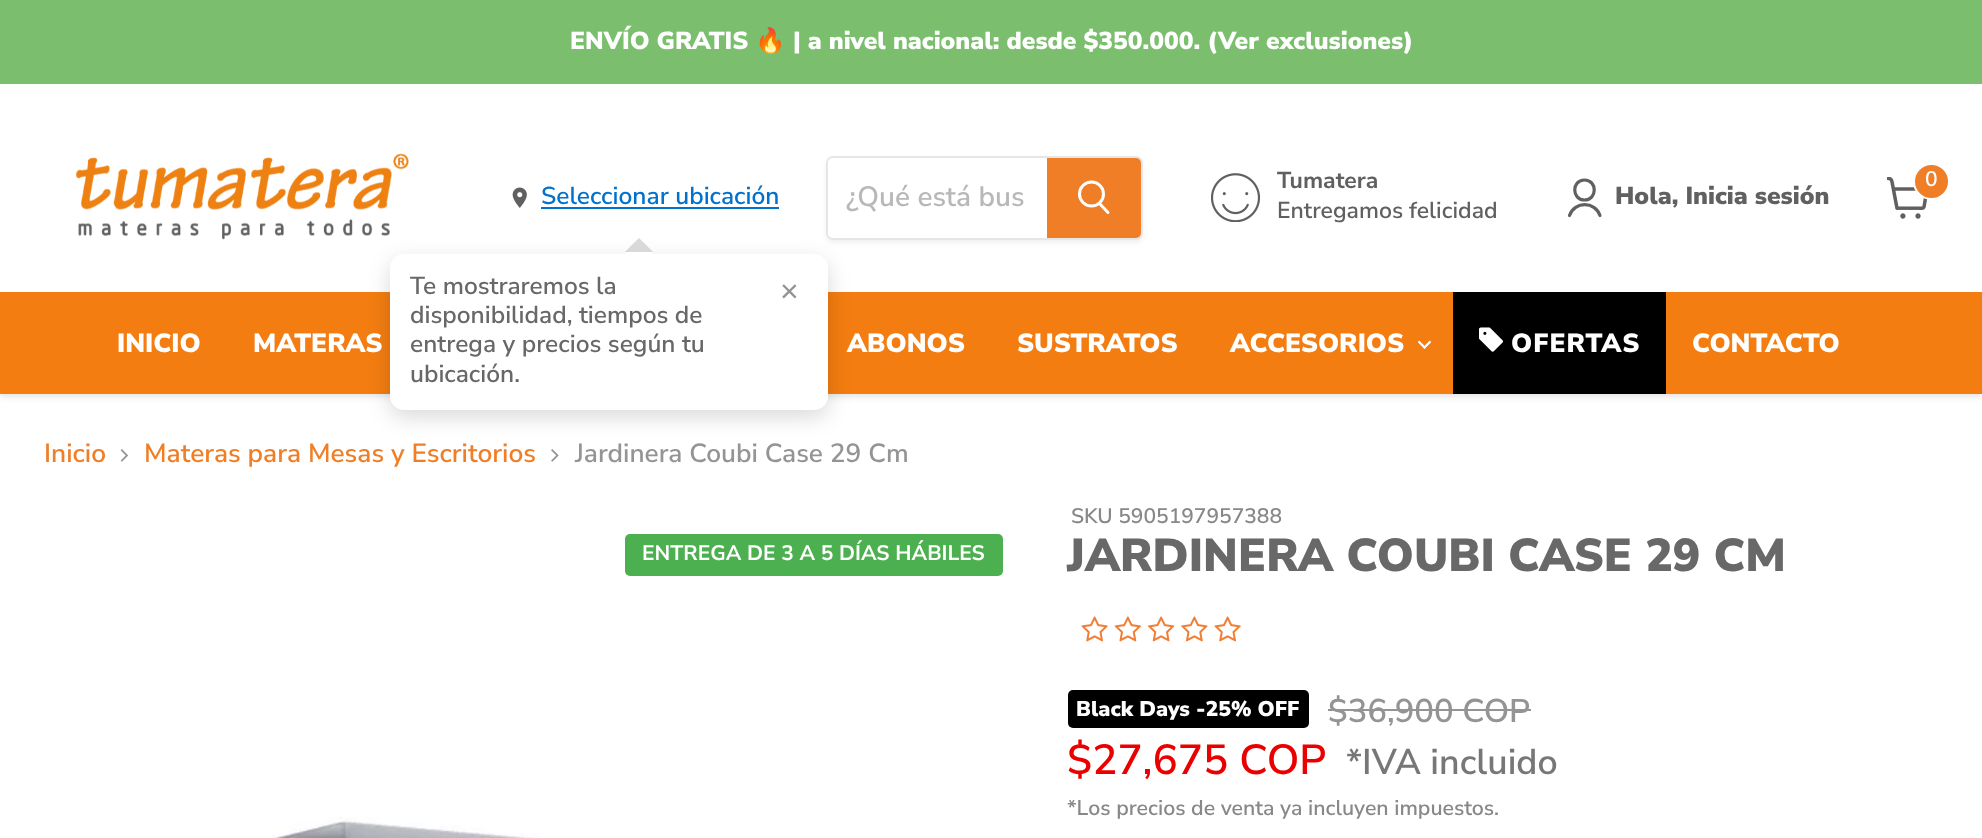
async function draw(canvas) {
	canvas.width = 1982;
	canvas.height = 838;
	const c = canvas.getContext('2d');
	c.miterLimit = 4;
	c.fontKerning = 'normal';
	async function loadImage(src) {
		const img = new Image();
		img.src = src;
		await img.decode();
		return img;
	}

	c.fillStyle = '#fff';
	c.fillRect(0, 0, 1982, 838);
	c.fillStyle = '#80808040';
	c.filter = 'blur(3.5px)';
	c.beginPath();
	c.rect(0, 86, 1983, 310);
	c.fill();
	c.filter = 'none';
	c.fillStyle = '#7bbe6e';
	c.fillRect(0, 0, 1982, 84);
	c.font = '900 24.6px Nunito Sans';
	c.fillStyle = '#fff';
	c.fillText('ENVÍO GRATIS', 570, 49);
	c.font = 'bold 24.6px Noto Color Emoji';
	c.fillText('🔥', 755, 49);
	c.font = '900 24.6px Nunito Sans';
	c.fillText('| a nivel nacional: desde $350.000. (Ver exclusiones)', 793, 49);
	c.fillRect(0, 84, 1982, 208);
	c.drawImage(await loadImage('img1.png'), 76, 153, 333, 87);
	c.drawImage(await loadImage('img2.png'), 512, 187, 15, 21);
	c.font = '600 24.5px Nunito Sans';
	c.fillStyle = '#0072ce';
	c.fillText('Seleccionar ubicación', 541, 204);
	c.fillRect(541, 207, 238, 2);
	c.fillStyle = '#f37d11';
	c.fillRect(0, 292, 1982, 102);
	c.drawImage(await loadImage('img8.png'), 551, 449, 8, 13);
	c.fillStyle = '#00000026';
	c.filter = 'blur(10.5px)';
	c.beginPath();
	c.roundRect(390, 261, 438, 156, 14);
	c.fill();
	c.filter = 'none';
	c.fillStyle = '#fff';
	c.beginPath();
	c.roundRect(390, 254, 438, 156, 14);
	c.fill();
	c.beginPath();
	c.moveTo(653, 254);
	c.lineTo(625, 254);
	c.lineTo(639, 240);
	c.closePath();
	c.fill();
	c.fillStyle = '#00000026';
	c.beginPath();
	c.moveTo(653, 252);
	c.lineTo(625, 252);
	c.lineTo(639, 238);
	c.closePath();
	c.fill();
	c.fillStyle = '#686868';
	for (const [text, x, y] of [
		['Te mostraremos la', 410, 294],
		['disponibilidad, tiempos de', 410, 323],
		['entrega y precios según tu', 410, 352],
		['ubicación.', 410, 382],
	]) {
		c.fillText(text, x, y);
	}
	c.font = '32px Liberation Sans';
	c.fillStyle = '#949494';
	c.fillText('×', 780, 302);
	c.save();
	c.beginPath();
	c.moveTo(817, 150);
	c.lineTo(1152, 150);
	c.lineTo(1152, 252);
	c.lineTo(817, 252);
	c.closePath();
	c.moveTo(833, 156);
	c.lineTo(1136, 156);
	c.bezierCurveTo(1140, 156, 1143, 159, 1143, 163);
	c.lineTo(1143, 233);
	c.bezierCurveTo(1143, 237, 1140, 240, 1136, 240);
	c.lineTo(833, 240);
	c.bezierCurveTo(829, 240, 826, 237, 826, 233);
	c.lineTo(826, 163);
	c.bezierCurveTo(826, 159, 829, 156, 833, 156);
	c.closePath();
	c.clip('evenodd');
	c.fillStyle = '#8080801c';
	c.filter = 'blur(2.5px)';
	c.beginPath();
	c.roundRect(826, 159, 317, 84, 7);
	c.fill();
	c.filter = 'none';
	c.restore();
	c.beginPath();
	c.roundRect(827, 157, 315, 82, 6);
	c.strokeStyle = '#80808033';
	c.lineWidth = 2;
	c.stroke();
	c.fillStyle = '#fff';
	c.beginPath();
	c.roundRect(828, 158, 219, 80, [5, 0, 0, 5]);
	c.fill();
	c.font = '600 28px Nunito Sans';
	c.fillStyle = '#b8b8b8';
	c.fillText('¿Qué está bus', 846, 206);
	c.fillStyle = '#f07e26';
	c.beginPath();
	c.roundRect(1048, 159, 92, 78, [0, 4, 4, 0]);
	c.fill();
	c.strokeStyle = '#f07e26';
	c.stroke();
	c.beginPath();
	c.moveTo(1108, 212.5);
	c.lineTo(1100, 204);
	c.strokeStyle = '#fff';
	c.lineWidth = 3;
	c.lineCap = 'round';
	c.stroke();
	c.beginPath();
	c.arc(1091.5, 194, 12, 0, 2 * Math.PI);
	c.stroke();
	c.drawImage(await loadImage('img3.png'), 1211, 173, 49, 49);
	c.font = 'bold 23px Nunito Sans';
	c.fillStyle = '#616060';
	c.fillText('Tumatera', 1277, 188);
	c.font = '600 23px Nunito Sans';
	c.fillText('Entregamos felicidad', 1277, 218);
	c.drawImage(await loadImage('img4.png'), 1887, 177, 41, 42);
	c.fillStyle = '#f07e26';
	c.beginPath();
	c.arc(1931.5, 181.5, 17.5, 0, 2 * Math.PI);
	c.fill();
	c.lineWidth = 2;
	c.stroke();
	c.font = '600 21px Nunito Sans';
	c.fillStyle = '#fff';
	c.fillText('0', 1925, 186);
	c.beginPath();
	c.moveTo(1584.5, 200);
	c.bezierCurveTo(1597.5, 200, 1597.5, 180, 1584.5, 180);
	c.bezierCurveTo(1571.5, 180, 1571.5, 200, 1584.5, 200);
	c.closePath();
	c.moveTo(1600, 215.5);
	c.bezierCurveTo(1595, 201, 1574.5, 201, 1569.5, 215.5);
	c.strokeStyle = '#616060';
	c.lineWidth = 3.2;
	c.lineJoin = 'round';
	c.stroke();
	c.font = '900 24.6px Nunito Sans';
	c.fillStyle = '#616060';
	c.fillText('Hola, Inicia sesión', 1615, 204);
	c.font = '900 26.25px Nunito Sans';
	c.fillStyle = '#fff';
	for (const [text, x, y] of [
		['INICIO', 117, 352],
		['MATERAS', 253, 352],
		['ABONOS', 847, 352],
		['SUSTRATOS', 1017, 352],
		['ACCESORIOS', 1230, 352],
	]) {
		c.fillText(text, x, y);
	}
	c.drawImage(await loadImage('img5.png'), 1418, 340, 14, 9);
	c.fillStyle = '#000';
	c.fillRect(1453, 292, 213, 102);
	c.drawImage(await loadImage('img6.png'), 1479, 327, 24, 25);
	c.letterSpacing = '1px';
	c.fillStyle = '#fff';
	c.fillText('OFERTAS', 1511, 352);
	c.letterSpacing = '0px';
	c.fillText('CONTACTO', 1692, 352);
	c.font = '600 26.25px Nunito Sans';
	c.fillStyle = '#f07e26';
	c.fillText('Inicio', 44, 462);
	c.drawImage(await loadImage('img7.png'), 120, 449, 9, 13);
	c.fillText('Materas para Mesas y Escritorios', 144, 462);
	c.fillStyle = '#949494';
	c.fillText('Jardinera Coubi Case 29 Cm', 575, 462);
	c.fillStyle = '#4caf50';
	c.beginPath();
	c.roundRect(625, 534, 378, 42, 5);
	c.fill();
	c.font = 'bold 21px Nunito Sans';
	c.fillStyle = '#fff';
	c.fillText('ENTREGA DE 3 A 5 DÍAS HÁBILES', 642, 560);
	c.drawImage(await loadImage('img9.png'), 272, 817, 268, 21);
	c.font = '600 21px Nunito Sans';
	c.fillStyle = '#898887';
	c.fillText('SKU 5905197957388', 1071, 523);
	c.font = '900 46px Nunito Sans';
	c.fillStyle = '#686868';
	c.fillText('JARDINERA COUBI CASE 29 CM', 1067, 571);
	c.drawImage(await loadImage('img10.png'), 1081, 616, 27, 26);
	c.drawImage(await loadImage('img11.png'), 1114, 616, 27, 26);
	c.drawImage(await loadImage('img12.png'), 1148, 616, 27, 26);
	c.drawImage(await loadImage('img13.png'), 1181, 616, 27, 26);
	c.drawImage(await loadImage('img10.png'), 1214, 616, 27, 26);
	c.font = '600 32.75px Nunito Sans';
	c.fillStyle = '#949494';
	c.fillText('$36,900 COP', 1328, 722);
	c.fillRect(1328, 709, 203, 2);
	c.font = '600 42px Nunito Sans';
	c.fillStyle = '#ea0000';
	c.fillText('$27,675 COP', 1067, 774);
	c.font = '600 35.75px Nunito Sans';
	c.fillStyle = '#777';
	c.fillText('*IVA incluido', 1346, 774);
	c.font = '600 21.3px Nunito Sans';
	c.fillStyle = '#898887';
	c.fillText('*Los precios de venta ya incluyen impuestos.', 1067, 815);
	c.fillStyle = '#000';
	c.beginPath();
	c.roundRect(1068, 690, 241, 38, 5);
	c.fill();
	c.font = '900 21.3px Nunito Sans';
	c.fillStyle = '#fff';
	c.fillText('Black Days -25% OFF', 1076, 716);
}

draw(document.querySelector('canvas'));
